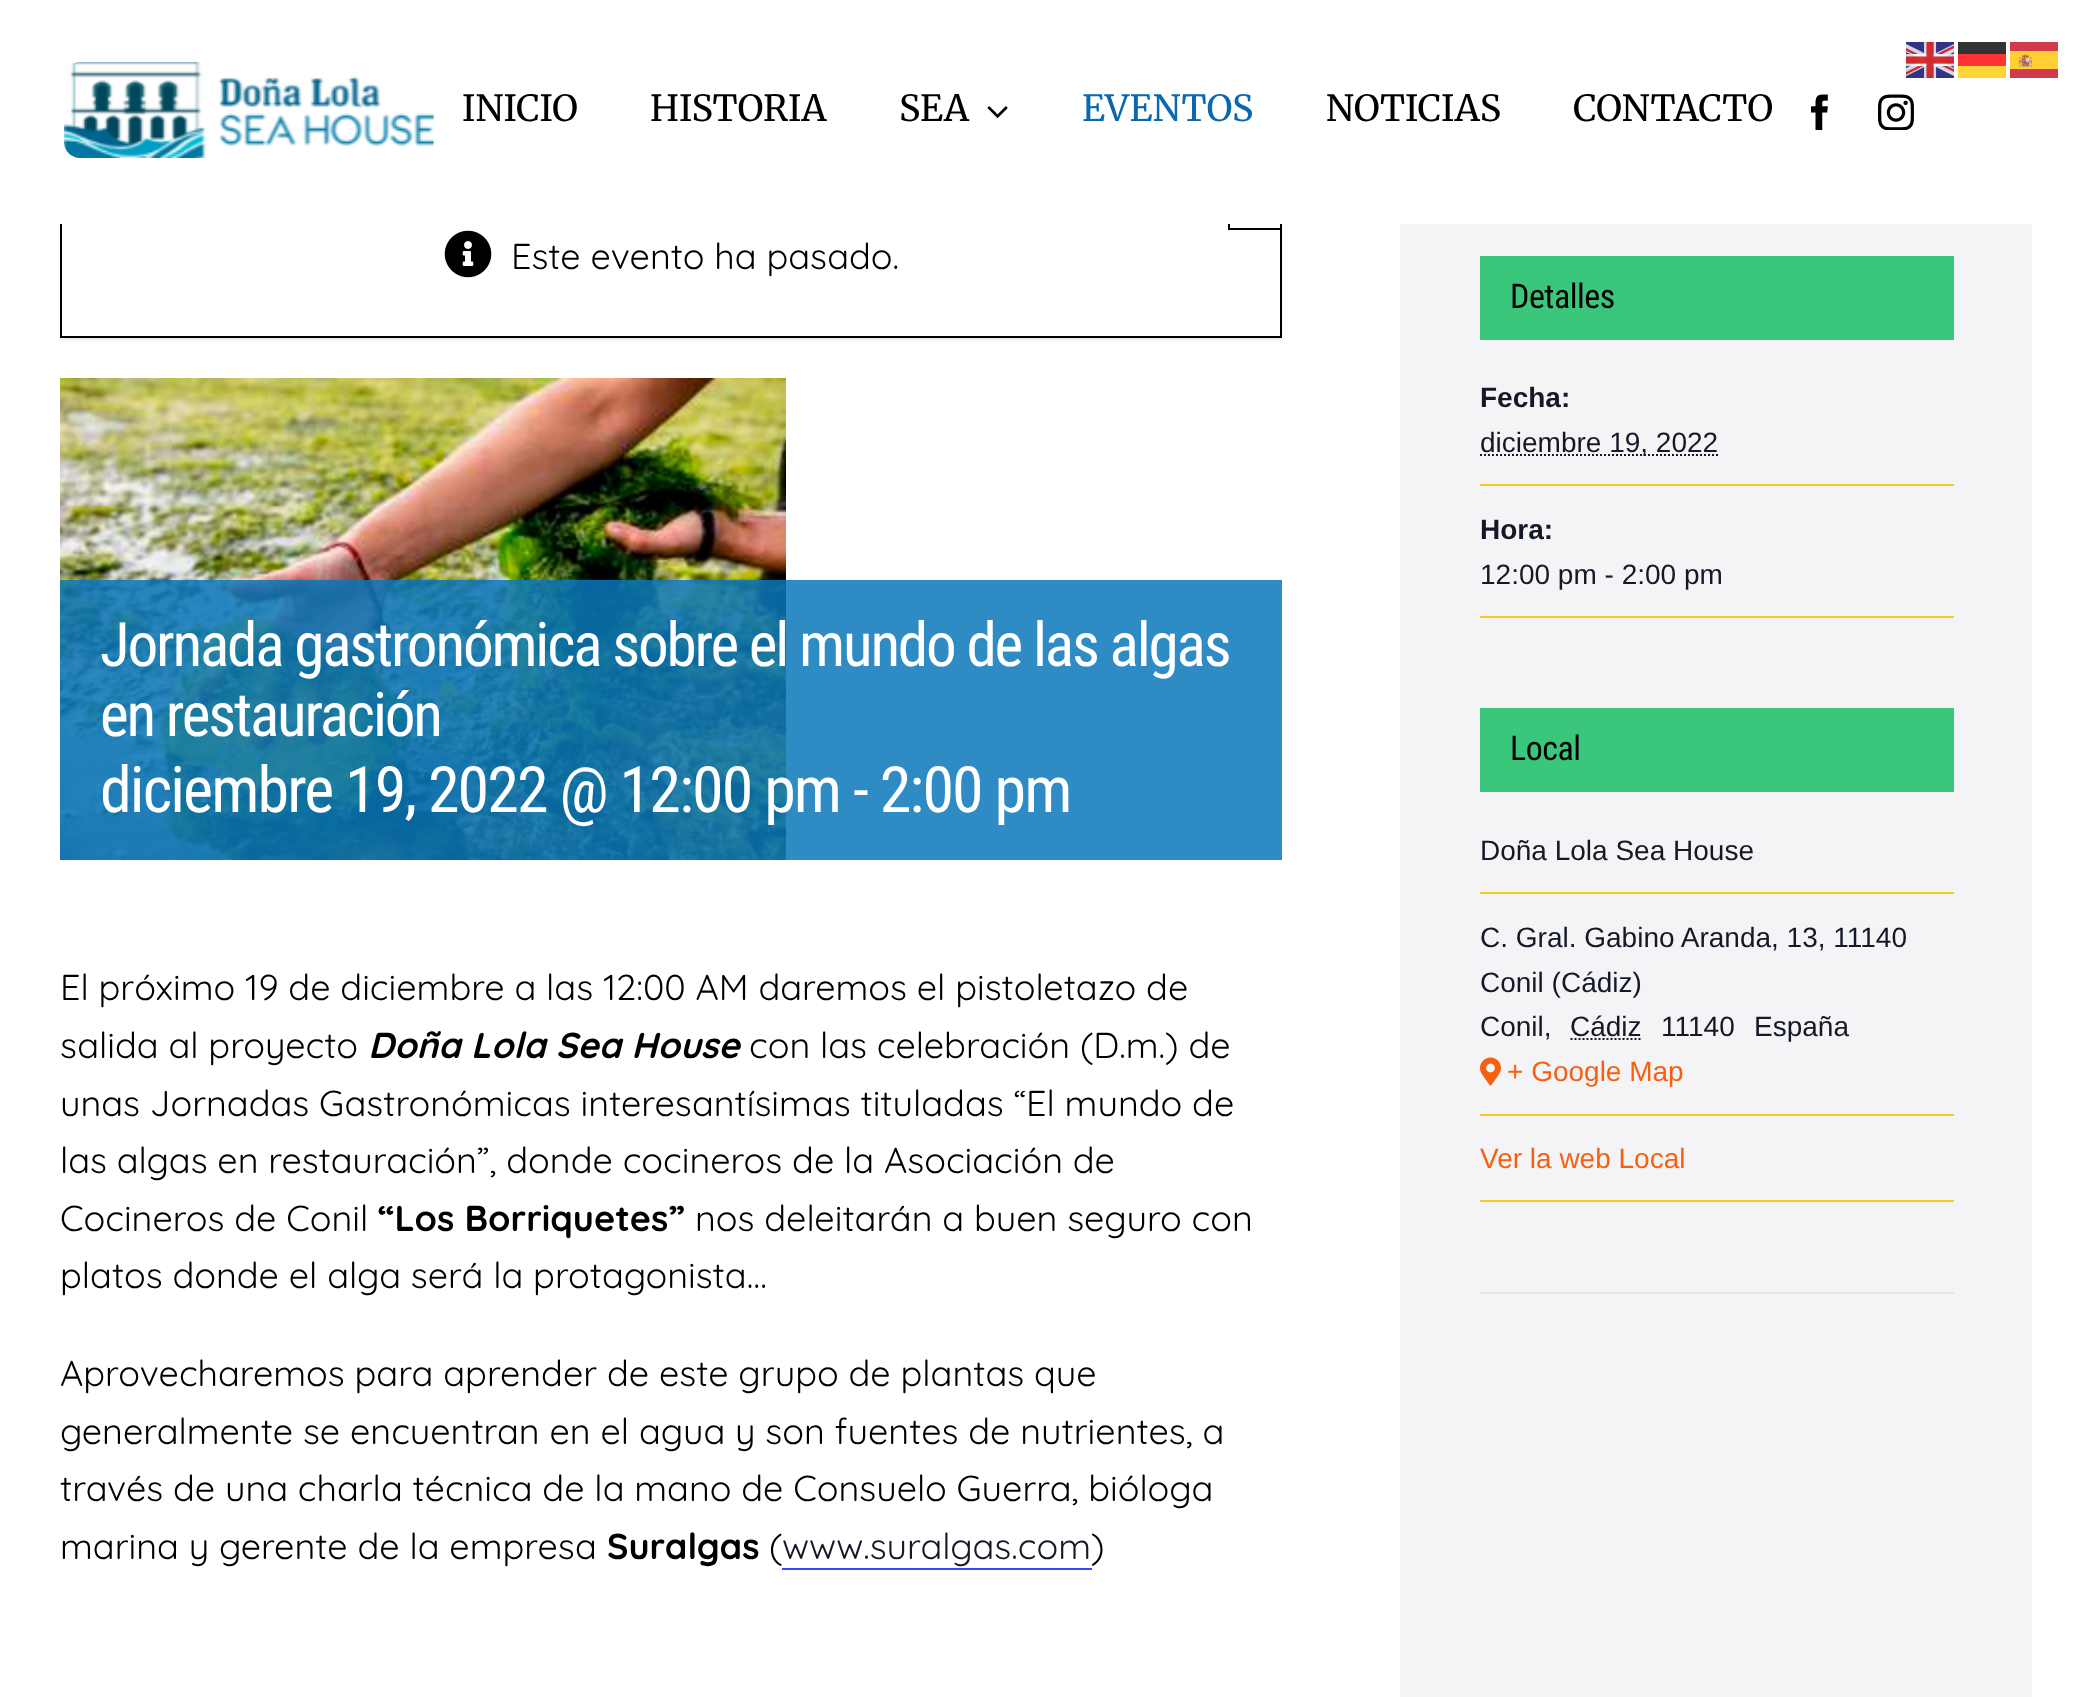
async function draw(canvas) {
	canvas.width = 2091;
	canvas.height = 1697;
	const c = canvas.getContext('2d');
	c.miterLimit = 4;
	c.fontKerning = 'normal';
	async function loadImage(src) {
		const img = new Image();
		img.src = src;
		await img.decode();
		return img;
	}

	c.fillStyle = '#fff';
	c.fillRect(0, 0, 2091, 1697);
	c.drawImage(await loadImage('img1.png'), 1906, 42, 48, 36);
	c.fillStyle = '#333';
	c.fillRect(1958, 42, 48, 12);
	c.drawImage(await loadImage('img2.png'), 2010, 42, 48, 36);
	c.fillStyle = '#f33';
	c.fillRect(1958, 54, 48, 12);
	c.fillStyle = '#ffd633';
	c.fillRect(1958, 66, 48, 12);
	c.save();
	c.beginPath();
	c.moveTo(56, 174);
	c.lineTo(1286, 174);
	c.lineTo(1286, 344);
	c.lineTo(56, 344);
	c.closePath();
	c.moveTo(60, 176);
	c.lineTo(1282, 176);
	c.lineTo(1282, 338);
	c.lineTo(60, 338);
	c.closePath();
	c.clip('evenodd');
	c.fillStyle = '#0000001a';
	c.filter = 'blur(1px)';
	c.beginPath();
	c.rect(60, 178, 1222, 162);
	c.fill();
	c.filter = 'none';
	c.restore();
	c.strokeStyle = '#000';
	c.lineWidth = 2;
	c.strokeRect(61, 177, 1220, 160);
	c.strokeRect(1229, 177, 52, 52);
	c.fillStyle = '#fff';
	c.fillRect(59, 176, 1224, 48);
	c.drawImage(await loadImage('img3.png'), 64, 62, 370, 96);
	c.font = '300 36px Merriweather';
	c.fillStyle = '#000';
	for (const [text, x, y] of [
		['INICIO', 462, 121],
		['HISTORIA', 650, 121],
		['SEA', 899, 121],
	]) {
		c.fillText(text, x, y);
	}
	c.drawImage(await loadImage('img4.png'), 987, 106, 21, 12);
	c.fillStyle = '#0a68af';
	c.fillText('EVENTOS', 1082, 121);
	c.fillStyle = '#000';
	c.fillText('NOTICIAS', 1326, 121);
	c.fillText('CONTACTO', 1573, 121);
	c.drawImage(await loadImage('img5.png'), 1811, 94, 17, 36);
	c.drawImage(await loadImage('img6.png'), 1878, 94, 36, 36);
	c.drawImage(await loadImage('img7.png'), 444, 230, 48, 48);
	c.font = '36px Quicksand';
	c.fillText('Este evento ha pasado.', 511, 269);
	c.drawImage(await loadImage('img8.png'), 60, 378, 726, 482);
	c.fillStyle = '#0b77bad9';
	c.fillRect(60, 580, 1222, 280);
	c.letterSpacing = '-2.2px';
	c.font = '61.25px Roboto Condensed';
	c.fillStyle = '#fff';
	c.fillText('Jornada gastronómica sobre el mundo de las algas', 100, 666);
	c.fillText('en restauración', 100, 736);
	c.letterSpacing = '-1.9px';
	c.font = '64px Roboto Condensed';
	c.fillText('diciembre 19, 2022 @ 12:00 pm - 2:00 pm', 100, 812);
	c.letterSpacing = '0px';
	c.font = '36px Quicksand';
	c.fillStyle = '#000';
	c.fillText('El próximo 19 de diciembre a las 12:00 AM daremos el pistoletazo de', 60, 1000);
	c.fillText('salida al proyecto', 60, 1058);
	c.font = 'italic bold 36px Quicksand';
	c.fillText('Doña Lola Sea House', 368, 1058);
	c.font = '36px Quicksand';
	for (const [text, x, y] of [
		['con las celebración (D.m.) de', 749, 1058],
		['unas Jornadas Gastronómicas interesantísimas tituladas “El mundo de', 60, 1116],
		['las algas en restauración”, donde cocineros de la Asociación de', 60, 1173],
		['Cocineros de Conil', 60, 1231],
	]) {
		c.fillText(text, x, y);
	}
	c.font = 'bold 36px Quicksand';
	c.fillText('“Los Borriquetes”', 378, 1231);
	c.font = '36px Quicksand';
	for (const [text, x, y] of [
		['nos deleitarán a buen seguro con', 695, 1231],
		['platos donde el alga será la protagonista…', 60, 1288],
		['Aprovecharemos para aprender de este grupo de plantas que', 60, 1386],
		['generalmente se encuentran en el agua y son fuentes de nutrientes, a', 60, 1444],
		['través de una charla técnica de la mano de Consuelo Guerra, bióloga', 60, 1501],
		['marina y gerente de la empresa', 60, 1559],
	]) {
		c.fillText(text, x, y);
	}
	c.font = 'bold 36px Quicksand';
	c.fillText('Suralgas', 607, 1559);
	c.font = '36px Quicksand';
	c.fillText('(', 769, 1559);
	c.fillStyle = '#141827';
	c.fillText('www.suralgas.com', 782, 1559);
	c.fillStyle = '#334aff';
	c.fillRect(782, 1568, 310, 2);
	c.fillStyle = '#000';
	c.fillText(')', 1091, 1559);
	c.fillStyle = '#f4f4f6';
	c.fillRect(1400, 224, 632, 1473);
	c.fillStyle = '#3bc77b';
	c.fillRect(1480, 256, 474, 84);
	c.letterSpacing = '-0.5px';
	c.font = '34px Roboto Condensed';
	c.fillStyle = '#000';
	c.fillText('Detalles', 1510, 308);
	c.letterSpacing = '0px';
	c.font = 'bold 28px Liberation Sans';
	c.fillStyle = '#141827';
	c.fillText('Fecha:', 1480, 407);
	c.fillStyle = '#f8cc23';
	c.fillRect(1480, 484, 474, 2);
	c.beginPath();
	c.moveTo(1480, 455);
	c.lineTo(1718, 455);
	c.strokeStyle = '#141827';
	c.setLineDash([2, 2]);
	c.stroke();
	c.font = '28px Liberation Sans';
	c.fillStyle = '#141827';
	c.fillText('diciembre 19, 2022', 1480, 452);
	c.font = 'bold 28px Liberation Sans';
	c.fillText('Hora:', 1480, 539);
	c.fillStyle = '#f8cc23';
	c.fillRect(1480, 616, 474, 2);
	c.font = '28px Liberation Sans';
	c.fillStyle = '#141827';
	c.fillText('12:00 pm - 2:00 pm', 1480, 584);
	c.fillStyle = '#3bc77b';
	c.fillRect(1480, 708, 474, 84);
	c.letterSpacing = '-0.5px';
	c.font = '34px Roboto Condensed';
	c.fillStyle = '#000';
	c.fillText('Local', 1510, 760);
	c.fillStyle = '#f8cc23';
	c.fillRect(1480, 892, 474, 2);
	c.letterSpacing = '0px';
	c.font = '28px Liberation Sans';
	c.fillStyle = '#141827';
	c.fillText('Doña Lola Sea House', 1480, 860);
	c.fillStyle = '#f8cc23';
	c.fillRect(1480, 1114, 474, 2);
	c.fillStyle = '#141827';
	for (const [text, x, y] of [
		['C. Gral. Gabino Aranda, 13, 11140', 1480, 947],
		['Conil (Cádiz)', 1480, 992],
		['Conil,', 1480, 1036],
		['Cádiz', 1570, 1036],
	]) {
		c.fillText(text, x, y);
	}
	c.beginPath();
	c.moveTo(1570.5, 1039);
	c.lineTo(1642, 1039);
	c.stroke();
	c.fillText('11140', 1661, 1036);
	c.fillText('España', 1754, 1036);
	c.drawImage(await loadImage('img9.png'), 1480, 1057, 21, 29);
	c.fillStyle = '#f86011';
	c.fillText('+ Google Map', 1507, 1081);
	c.fillStyle = '#f8cc23';
	c.fillRect(1480, 1200, 474, 2);
	c.fillStyle = '#f86011';
	c.fillText('Ver la web Local', 1480, 1168);
	c.fillStyle = '#e4e4e4';
	c.fillRect(1480, 1292, 474, 2);
}

draw(document.querySelector('canvas'));
